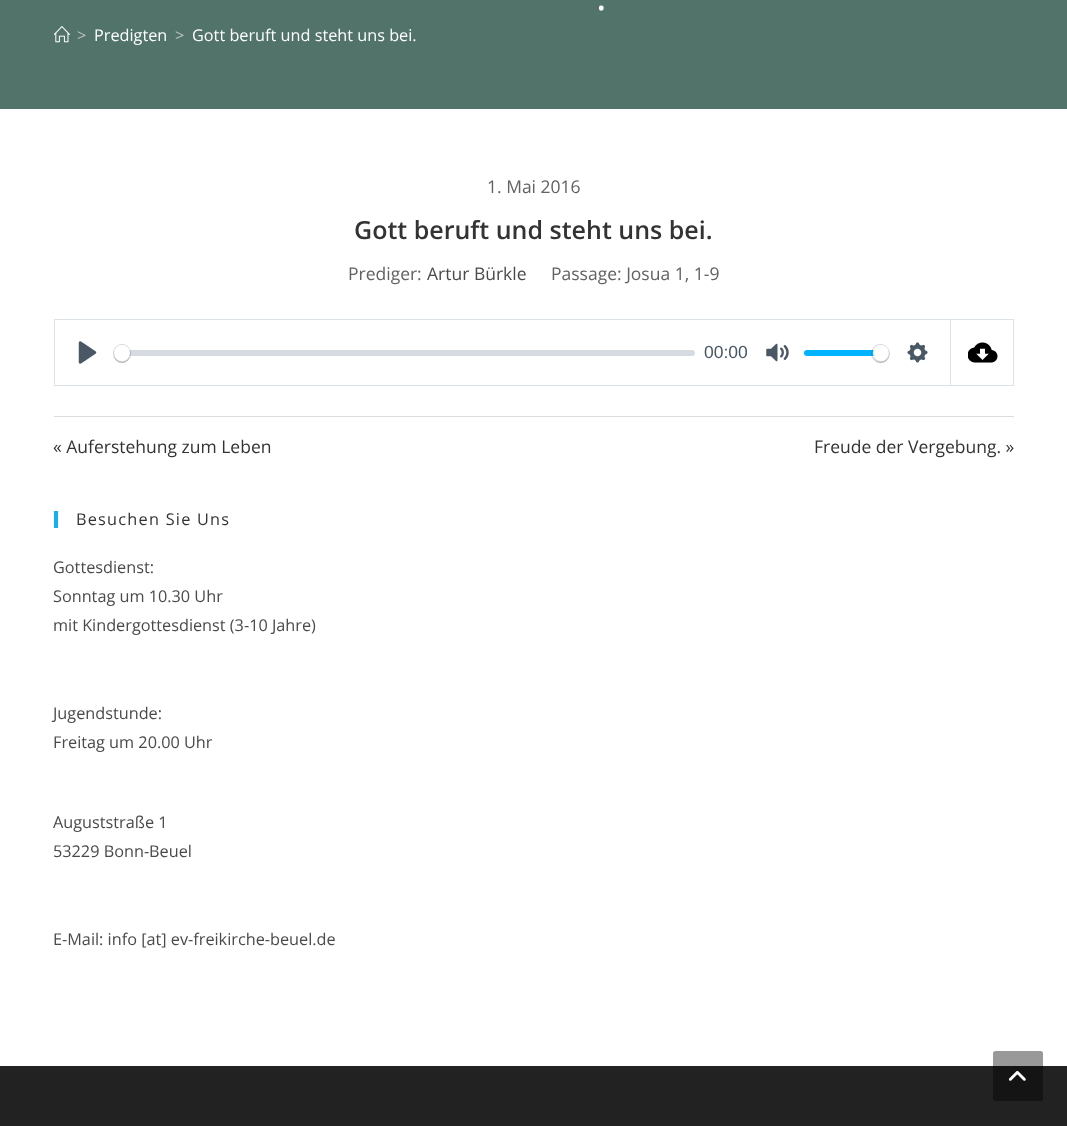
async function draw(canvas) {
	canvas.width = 1067;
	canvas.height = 1126;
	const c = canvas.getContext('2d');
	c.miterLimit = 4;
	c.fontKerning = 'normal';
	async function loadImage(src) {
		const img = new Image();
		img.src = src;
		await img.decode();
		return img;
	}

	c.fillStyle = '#fff';
	c.fillRect(0, 0, 1067, 1126);
	c.fillStyle = '#51736a';
	c.fillRect(0, 0, 1067, 109);
	c.font = '40px Open Sans';
	c.fillStyle = '#fff';
	c.fillText('.', 596, 10);
	c.drawImage(await loadImage('img1.png'), 54, 26, 16, 17);
	c.font = '16.25px Open Sans';
	c.fillStyle = '#c6c6c6';
	c.fillText('>', 77, 41);
	c.fillStyle = '#fff';
	c.fillText('Predigten', 94, 41);
	c.fillStyle = '#c6c6c6';
	c.fillText('>', 175, 41);
	c.fillStyle = '#fff';
	c.fillText('Gott beruft und steht uns bei.', 192, 41);
	c.font = '17.5px Open Sans';
	c.fillStyle = '#626262';
	c.fillText('1. Mai 2016', 487, 193);
	c.font = '600 25px Open Sans';
	c.fillStyle = '#333';
	c.fillText('Gott beruft und steht uns bei.', 354, 239);
	c.font = '17.5px Open Sans';
	c.fillStyle = '#626262';
	c.fillText('Prediger:', 348, 280);
	c.fillStyle = '#4a4a4a';
	c.fillText('Artur Bürkle', 427, 280);
	c.fillStyle = '#626262';
	c.fillText('Passage: Josua 1, 1-9', 551, 280);
	c.strokeStyle = '#dbe3e8';
	c.strokeRect(54.5, 319.5, 896, 66);
	c.drawImage(await loadImage('img2.png'), 78, 341, 19, 23);
	c.fillStyle = '#c1c9d1a8';
	c.beginPath();
	c.roundRect(114, 350, 581, 6, 3);
	c.fill();
	c.beginPath();
	c.roundRect(113.5, 344.5, 17, 18, 8.5);
	c.strokeStyle = '#23292f33';
	c.stroke();
	c.fillStyle = '#00000026';
	c.filter = 'blur(0.5px)';
	c.beginPath();
	c.roundRect(114, 346, 16, 17, 8);
	c.fill();
	c.filter = 'none';
	c.fillStyle = '#fff';
	c.beginPath();
	c.arc(122, 353, 8, 0, 2 * Math.PI);
	c.fill();
	c.font = '17.5px Liberation Sans';
	c.fillStyle = '#4a5764';
	c.fillText('00:00', 704, 358);
	c.drawImage(await loadImage('img3.png'), 766, 343, 23, 19);
	c.fillStyle = '#00b3ff';
	c.beginPath();
	c.roundRect(804, 350, 85, 6, 3);
	c.fill();
	c.beginPath();
	c.arc(880.5, 353.5, 9, 0, 2 * Math.PI);
	c.stroke();
	c.fillStyle = '#00000026';
	c.filter = 'blur(0.5px)';
	c.beginPath();
	c.roundRect(873, 346, 16, 17, 8);
	c.fill();
	c.filter = 'none';
	c.fillStyle = '#fff';
	c.beginPath();
	c.arc(881, 353, 8, 0, 2 * Math.PI);
	c.fill();
	c.drawImage(await loadImage('img4.png'), 907, 342, 21, 21);
	for (const [x, y, w, h, color] of [
		[951, 319, 63, 1, '#dbe3e8'],
		[1013, 319, 1, 67, '#dbe3e8'],
		[951, 385, 63, 1, '#dbe3e8'],
	]) {
		c.fillStyle = color;
		c.fillRect(x, y, w, h);
	}
	c.drawImage(await loadImage('img5.png'), 968, 342, 30, 21);
	c.fillStyle = '#ddd';
	c.fillRect(54, 416, 960, 1);
	c.font = '17.5px Open Sans';
	c.fillStyle = '#333';
	c.fillText('« Auferstehung zum Leben', 53, 453);
	c.fillText('Freude der Vergebung. »', 814, 453);
	c.fillStyle = '#13aff0';
	c.fillRect(54, 511, 4, 17);
	c.letterSpacing = '1.25px';
	c.font = '16.25px Open Sans';
	c.fillStyle = '#333';
	c.fillText('Besuchen Sie Uns', 76, 525);
	c.letterSpacing = '0px';
	c.fillStyle = '#4a4a4a';
	for (const [text, x, y] of [
		['Gottesdienst:', 53, 573],
		['Sonntag um 10.30 Uhr', 53, 602],
		['mit Kindergottesdienst (3-10 Jahre)', 53, 631],
		['Jugendstunde:', 53, 719],
		['Freitag um 20.00 Uhr', 53, 748],
		['Auguststraße 1', 53, 828],
		['53229 Bonn-Beuel', 53, 857],
		['E-Mail: info [at] ev-freikirche-beuel.de', 53, 945],
	]) {
		c.fillText(text, x, y);
	}
	c.fillStyle = '#222';
	c.fillRect(0, 1066, 1067, 60);
	c.fillStyle = '#00000066';
	c.beginPath();
	c.roundRect(993, 1051, 50, 50, 2.5);
	c.fill();
	c.drawImage(await loadImage('img6.png'), 1008, 1070, 18, 11);
}

draw(document.querySelector('canvas'));
